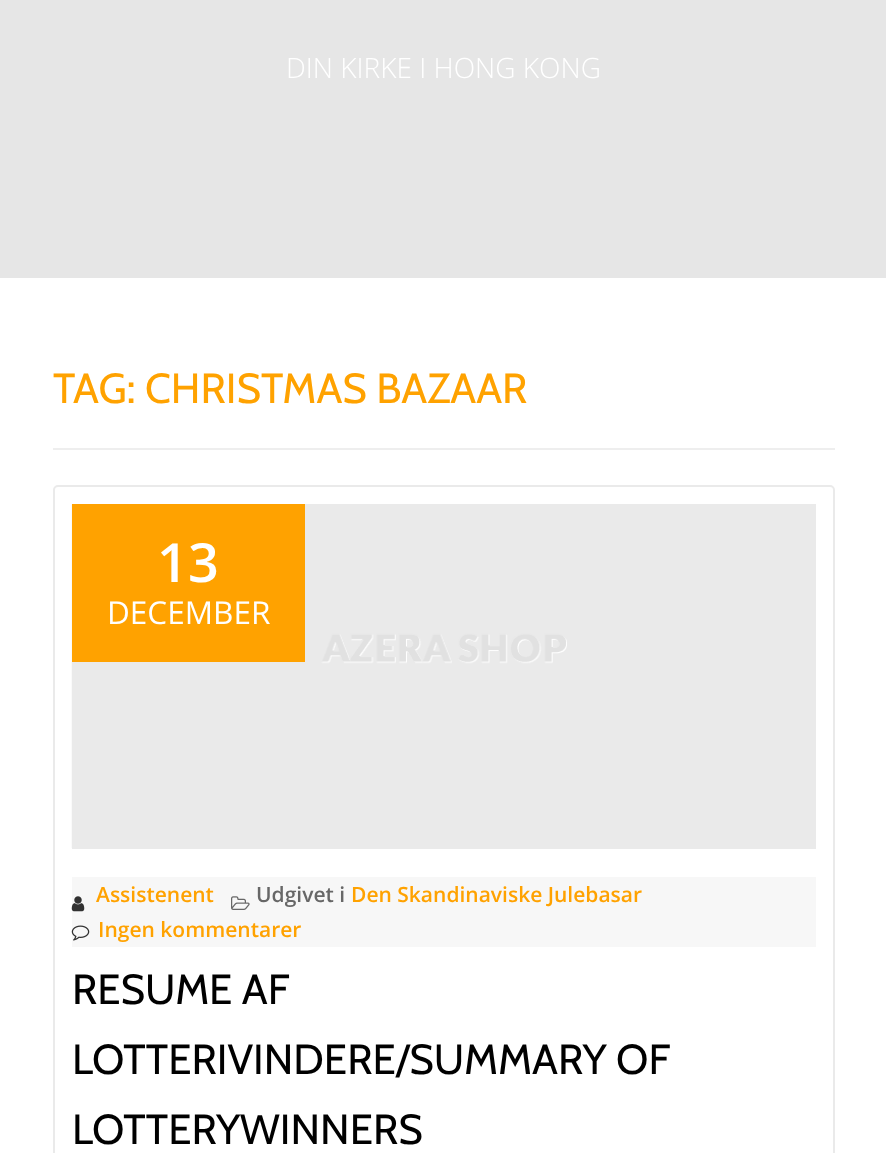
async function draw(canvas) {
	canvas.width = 886;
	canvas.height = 1153;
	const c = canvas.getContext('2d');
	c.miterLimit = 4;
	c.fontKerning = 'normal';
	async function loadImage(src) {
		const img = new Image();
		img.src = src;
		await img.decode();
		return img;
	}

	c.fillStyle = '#fff';
	c.fillRect(0, 0, 886, 1153);
	c.fillStyle = '#e6e6e6';
	c.fillRect(0, 0, 886, 278);
	c.font = '300 28px Open Sans';
	c.fillStyle = '#fff';
	c.fillText('DIN KIRKE I HONG KONG', 286, 78);
	c.fillStyle = '#eee';
	c.fillRect(53, 448, 782, 2);
	c.font = '42px Cabin';
	c.fillStyle = '#ffa200';
	c.fillText('TAG: CHRISTMAS BAZAAR', 53, 403);
	c.beginPath();
	c.roundRect(54, 486, 780, 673, 4);
	c.strokeStyle = '#eaeaea';
	c.lineWidth = 2;
	c.stroke();
	c.fillStyle = '#eaeaea';
	c.fillRect(72, 504, 744, 345);
	c.drawImage(await loadImage('img1.png'), 71, 504, 496, 344);
	c.fillStyle = '#ffa200';
	c.fillRect(72, 504, 233, 158);
	c.font = '600 54px Open Sans';
	c.fillStyle = '#fff';
	c.fillText('13', 157, 582);
	c.font = '31.5px Open Sans';
	c.fillText('DECEMBER', 107, 624);
	c.fillStyle = '#f7f7f7';
	c.fillRect(72, 877, 744, 70);
	c.drawImage(await loadImage('img2.png'), 71, 896, 14, 16);
	c.font = '600 21px Open Sans';
	c.fillStyle = '#ffa200';
	c.fillText('Assistenent', 96, 902);
	c.drawImage(await loadImage('img3.png'), 231, 896, 19, 14);
	c.fillStyle = '#676767';
	c.fillText('Udgivet i', 256, 902);
	c.fillStyle = '#ffa200';
	c.fillText('Den Skandinaviske Julebasar', 351, 902);
	c.drawImage(await loadImage('img4.png'), 71, 925, 19, 16);
	c.fillText('Ingen kommentarer', 98, 937);
	c.font = '42px Cabin';
	c.fillStyle = '#000';
	for (const [text, x, y] of [
		['RESUME AF', 72, 1004],
		['LOTTERIVINDERE/SUMMARY OF', 72, 1074],
		['LOTTERYWINNERS', 72, 1144],
	]) {
		c.fillText(text, x, y);
	}
}

draw(document.querySelector('canvas'));
